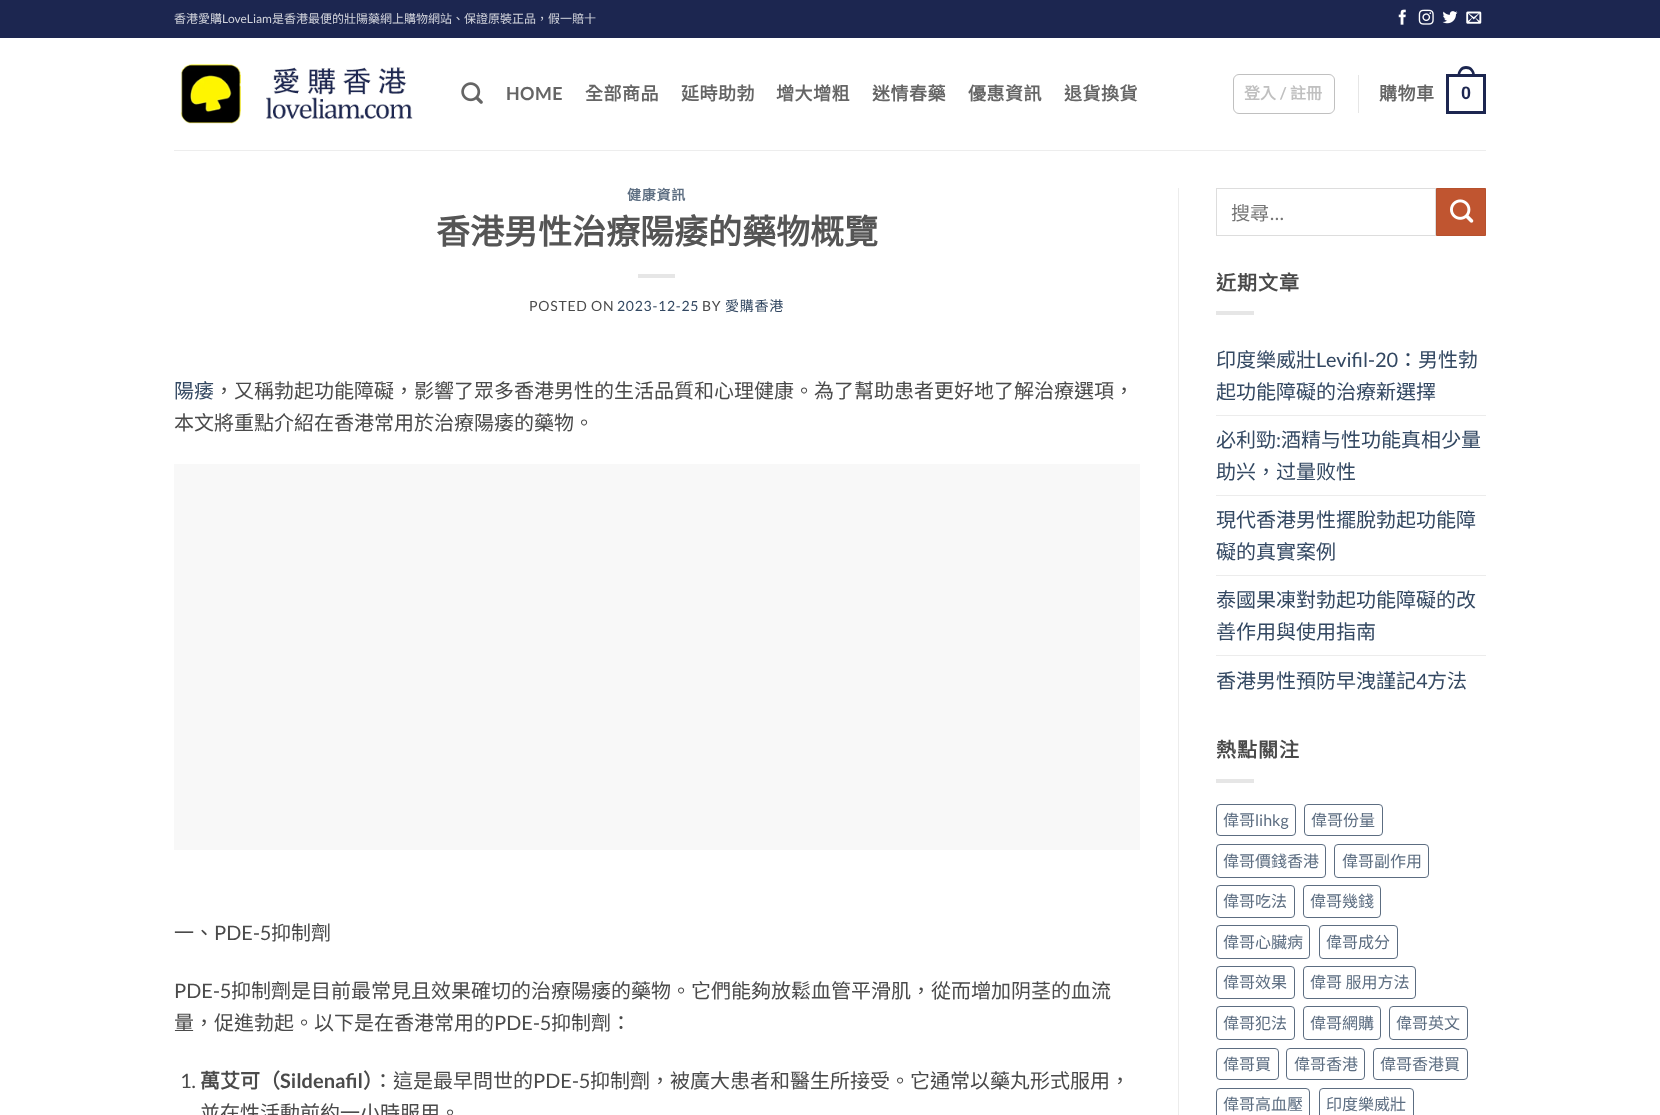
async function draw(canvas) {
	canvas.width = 1660;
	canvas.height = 1115;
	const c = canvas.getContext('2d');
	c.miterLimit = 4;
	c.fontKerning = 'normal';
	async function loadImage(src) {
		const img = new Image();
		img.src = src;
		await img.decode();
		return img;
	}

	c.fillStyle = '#fff';
	c.fillRect(0, 0, 1660, 1115);
	c.fillStyle = '#1c2650';
	c.fillRect(0, 0, 1660, 38);
	c.font = '12px Noto Sans CJK HK';
	c.fillStyle = '#d2d4dc';
	c.fillText('香港愛購', 174, 23);
	c.font = '12px Lato';
	c.fillText('LoveLiam', 222, 23);
	c.font = '12px Noto Sans CJK HK';
	c.fillText('是香港最便的壯陽藥網上購物網站、保證原裝正品，假一賠十', 272, 23);
	c.drawImage(await loadImage('img1.png'), 1398, 9, 8, 16);
	c.drawImage(await loadImage('img2.png'), 1418, 9, 16, 16);
	c.drawImage(await loadImage('img3.png'), 1442, 11, 16, 13);
	c.drawImage(await loadImage('img4.png'), 1466, 11, 16, 13);
	c.drawImage(await loadImage('img5.png'), 180, 64, 233, 60);
	c.drawImage(await loadImage('img6.png'), 461, 82, 22, 22);
	c.letterSpacing = '0.5px';
	c.font = 'bold 18px Lato';
	c.fillStyle = '#656565';
	c.fillText('HOME', 506, 100);
	c.font = 'bold 18px Noto Sans CJK HK';
	for (const [text, x, y] of [
		['全部商品', 585, 100],
		['延時助勃', 681, 100],
		['增大增粗', 776, 100],
		['迷情春藥', 872, 100],
		['優惠資訊', 968, 100],
		['退貨換貨', 1064, 100],
	]) {
		c.fillText(text, x, y);
	}
	c.beginPath();
	c.roundRect(1233.5, 74.5, 101, 39, 5.5);
	c.strokeStyle = '#c0c0c0';
	c.stroke();
	c.letterSpacing = '0px';
	c.font = 'bold 16px Noto Sans CJK HK';
	c.fillStyle = '#c0c0c0';
	c.fillText('登入', 1244, 99);
	c.font = 'bold 16px Lato';
	c.fillText('/', 1280, 99);
	c.font = 'bold 16px Noto Sans CJK HK';
	c.fillText('註冊', 1290, 99);
	c.fillStyle = '#e6e6e6';
	c.fillRect(1358, 75, 1, 38);
	c.letterSpacing = '0.5px';
	c.font = 'bold 18px Noto Sans CJK HK';
	c.fillStyle = '#656565';
	c.fillText('購物車', 1379, 100);
	c.strokeStyle = '#1c2650';
	c.lineWidth = 3;
	c.strokeRect(1447.5, 75.5, 37, 37);
	c.fillStyle = '#1c2650';
	c.beginPath();
	c.moveTo(1466, 66);
	c.bezierCurveTo(1472, 66, 1475, 71, 1475, 76);
	c.lineTo(1457.5, 76);
	c.bezierCurveTo(1457.5, 71, 1460.5, 66, 1466, 66);
	c.closePath();
	c.moveTo(1466, 69);
	c.bezierCurveTo(1470.5, 69, 1472.5, 72.5, 1472.5, 76);
	c.lineTo(1460, 76);
	c.bezierCurveTo(1460, 72.5, 1462, 69, 1466, 69);
	c.closePath();
	c.fill('evenodd');
	c.font = 'bold 18px Liberation Sans';
	c.fillText('0', 1461, 99);
	c.fillStyle = '#ededed';
	c.fillRect(174, 150, 1312, 1);
	c.letterSpacing = '0.75px';
	c.font = 'bold 14px Noto Sans CJK HK';
	c.fillStyle = '#5c6d81';
	c.fillText('健康資訊', 627, 200);
	c.letterSpacing = '0px';
	c.font = 'bold 34px Noto Sans CJK HK';
	c.fillStyle = '#555';
	c.fillText('香港男性治療陽痿的藥物概覽', 436, 244);
	c.fillStyle = '#e6e6e6';
	c.fillRect(638, 274, 37, 4);
	c.letterSpacing = '0.75px';
	c.font = '14px Lato';
	c.fillStyle = '#4a4a4a';
	c.fillText('POSTED ON', 529, 311);
	c.fillStyle = '#334862';
	c.fillText('2023-12-25', 617, 311);
	c.fillStyle = '#4a4a4a';
	c.fillText('BY', 702, 311);
	c.font = '14px Noto Sans CJK HK';
	c.fillStyle = '#334862';
	c.fillText('愛購香港', 725, 311);
	c.letterSpacing = '0px';
	c.font = '20px Noto Sans CJK HK';
	c.fillText('陽痿', 174, 398);
	c.fillStyle = '#4a4a4a';
	c.fillText('，又稱勃起功能障礙，影響了眾多香港男性的生活品質和心理健康。為了幫助患者更好地了解治療選項，', 214, 398);
	c.fillText('本文將重點介紹在香港常用於治療陽痿的藥物。', 174, 430);
	c.fillStyle = '#f8f8f8';
	c.fillRect(174, 464, 966, 386);
	c.fillStyle = '#4a4a4a';
	c.fillText('一、', 174, 940);
	c.font = '20px Lato';
	c.fillText('PDE-5', 214, 940);
	c.font = '20px Noto Sans CJK HK';
	c.fillText('抑制劑', 271, 940);
	c.font = '20px Lato';
	c.fillText('PDE-5', 174, 998);
	c.font = '20px Noto Sans CJK HK';
	c.fillText('抑制劑是目前最常見且效果確切的治療陽痿的藥物。它們能夠放鬆血管平滑肌，從而增加阴茎的血流', 231, 998);
	c.fillText('量，促進勃起。以下是在香港常用的', 174, 1030);
	c.font = '20px Lato';
	c.fillText('PDE-5', 494, 1030);
	c.font = '20px Noto Sans CJK HK';
	c.fillText('抑制劑：', 551, 1030);
	c.font = '20px Lato';
	c.fillText('1.', 180, 1088);
	c.font = 'bold 20px Noto Sans CJK HK';
	c.fillText('萬艾可（', 200, 1088);
	c.font = 'bold 20px Lato';
	c.fillText('Sildenafil', 280, 1088);
	c.font = 'bold 20px Noto Sans CJK HK';
	c.fillText('）', 363, 1088);
	c.font = '20px Noto Sans CJK HK';
	c.fillText('：這是最早問世的', 373, 1088);
	c.font = '20px Lato';
	c.fillText('PDE-5', 533, 1088);
	c.font = '20px Noto Sans CJK HK';
	c.fillText('抑制劑，被廣大患者和醫生所接受。它通常以藥丸形式服用，', 590, 1088);
	c.fillText('並在性活動前約一小時服用。', 200, 1120);
	c.fillStyle = '#ececec';
	c.fillRect(1178, 188, 1, 927);
	c.strokeStyle = '#ddd';
	c.lineWidth = 1;
	c.strokeRect(1216.5, 188.5, 219, 47);
	c.font = '19px Noto Sans CJK HK';
	c.fillStyle = '#757575';
	c.fillText('搜尋', 1231, 220);
	c.font = '19px Lato';
	c.fillText('…', 1270, 220);
	c.fillStyle = '#c05530';
	c.beginPath();
	c.rect(1436.5, 188.5, 49, 47);
	c.fill();
	c.strokeStyle = '#b6512e';
	c.stroke();
	c.drawImage(await loadImage('img7.png'), 1450, 199, 24, 24);
	c.letterSpacing = '1px';
	c.font = 'bold 20px Noto Sans CJK HK';
	c.fillStyle = '#4a4a4a';
	c.fillText('近期文章', 1216, 290);
	c.fillStyle = '#e6e6e6';
	c.fillRect(1216, 311, 38, 4);
	c.letterSpacing = '0px';
	c.font = '20px Noto Sans CJK HK';
	c.fillStyle = '#334862';
	c.fillText('印度樂威壯', 1216, 367);
	c.font = '20px Lato';
	c.fillText('Levifil-20', 1316, 367);
	c.font = '20px Noto Sans CJK HK';
	c.fillText('：男性勃', 1398, 367);
	c.fillText('起功能障礙的治療新選擇', 1216, 399);
	c.fillStyle = '#ececec';
	c.fillRect(1216, 415, 270, 1);
	c.fillStyle = '#334862';
	c.fillText('必利勁', 1216, 447);
	c.font = '20px Lato';
	c.fillText(':', 1276, 447);
	c.font = '20px Noto Sans CJK HK';
	c.fillText('酒精与性功能真相少量', 1281, 447);
	c.fillText('助兴，过量败性', 1216, 479);
	c.fillStyle = '#ececec';
	c.fillRect(1216, 495, 270, 1);
	c.fillStyle = '#334862';
	c.fillText('現代香港男性擺脫勃起功能障', 1216, 527);
	c.fillText('礙的真實案例', 1216, 559);
	c.fillStyle = '#ececec';
	c.fillRect(1216, 575, 270, 1);
	c.fillStyle = '#334862';
	c.fillText('泰國果凍對勃起功能障礙的改', 1216, 607);
	c.fillText('善作用與使用指南', 1216, 639);
	c.fillStyle = '#ececec';
	c.fillRect(1216, 655, 270, 1);
	c.fillStyle = '#334862';
	c.fillText('香港男性預防早洩謹記', 1216, 688);
	c.font = '20px Lato';
	c.fillText('4', 1416, 688);
	c.font = '20px Noto Sans CJK HK';
	c.fillText('方法', 1427, 688);
	c.letterSpacing = '1px';
	c.font = 'bold 20px Noto Sans CJK HK';
	c.fillStyle = '#4a4a4a';
	c.fillText('熱點關注', 1216, 757);
	c.fillStyle = '#e6e6e6';
	c.fillRect(1216, 779, 38, 4);
	c.beginPath();
	c.roundRect(1216.5, 804.5, 79, 31, 3.5);
	c.strokeStyle = '#5c6d81';
	c.stroke();
	c.letterSpacing = '0px';
	c.font = '16px Noto Sans CJK HK';
	c.fillStyle = '#5c6d81';
	c.fillText('偉哥', 1223, 826);
	c.font = '16px Lato';
	c.fillText('lihkg', 1255, 826);
	c.beginPath();
	c.roundRect(1304.5, 804.5, 78, 31, 3.5);
	c.stroke();
	c.font = '16px Noto Sans CJK HK';
	c.fillText('偉哥份量', 1311, 826);
	c.beginPath();
	c.roundRect(1216.5, 844.5, 109, 33, 3.5);
	c.stroke();
	c.fillText('偉哥價錢香港', 1223, 867);
	c.beginPath();
	c.roundRect(1334.5, 844.5, 94, 33, 3.5);
	c.stroke();
	c.fillText('偉哥副作用', 1342, 867);
	c.beginPath();
	c.roundRect(1216.5, 885.5, 78, 32, 3.5);
	c.stroke();
	c.fillText('偉哥吃法', 1223, 907);
	c.beginPath();
	c.roundRect(1303.5, 885.5, 77, 32, 3.5);
	c.stroke();
	c.fillText('偉哥幾錢', 1310, 907);
	c.beginPath();
	c.roundRect(1216.5, 925.5, 93, 33, 3.5);
	c.stroke();
	c.fillText('偉哥心臟病', 1223, 948);
	c.beginPath();
	c.roundRect(1319.5, 925.5, 78, 33, 3.5);
	c.stroke();
	c.fillText('偉哥成分', 1326, 948);
	c.beginPath();
	c.roundRect(1216.5, 966.5, 78, 32, 3.5);
	c.stroke();
	c.fillText('偉哥效果', 1223, 988);
	c.beginPath();
	c.roundRect(1303.5, 966.5, 112, 32, 3.5);
	c.stroke();
	c.fillText('偉哥 服用方法', 1310, 988);
	c.beginPath();
	c.roundRect(1216.5, 1006.5, 78, 33, 3.5);
	c.stroke();
	c.fillText('偉哥犯法', 1223, 1029);
	c.beginPath();
	c.roundRect(1303.5, 1006.5, 77, 33, 3.5);
	c.stroke();
	c.fillText('偉哥網購', 1310, 1029);
	c.beginPath();
	c.roundRect(1389.5, 1006.5, 78, 33, 3.5);
	c.stroke();
	c.fillText('偉哥英文', 1396, 1029);
	c.beginPath();
	c.roundRect(1216.5, 1048.5, 62, 31, 3.5);
	c.stroke();
	c.fillText('偉哥買', 1223, 1070);
	c.beginPath();
	c.roundRect(1286.5, 1048.5, 78, 31, 3.5);
	c.stroke();
	c.fillText('偉哥香港', 1294, 1070);
	c.beginPath();
	c.roundRect(1373.5, 1048.5, 94, 31, 3.5);
	c.stroke();
	c.fillText('偉哥香港買', 1380, 1070);
	c.beginPath();
	c.roundRect(1216.5, 1088.5, 93, 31, 3.5);
	c.stroke();
	c.fillText('偉哥高血壓', 1223, 1110);
	c.beginPath();
	c.roundRect(1319.5, 1088.5, 94, 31, 3.5);
	c.stroke();
	c.fillText('印度樂威壯', 1326, 1110);
}

draw(document.querySelector('canvas'));
